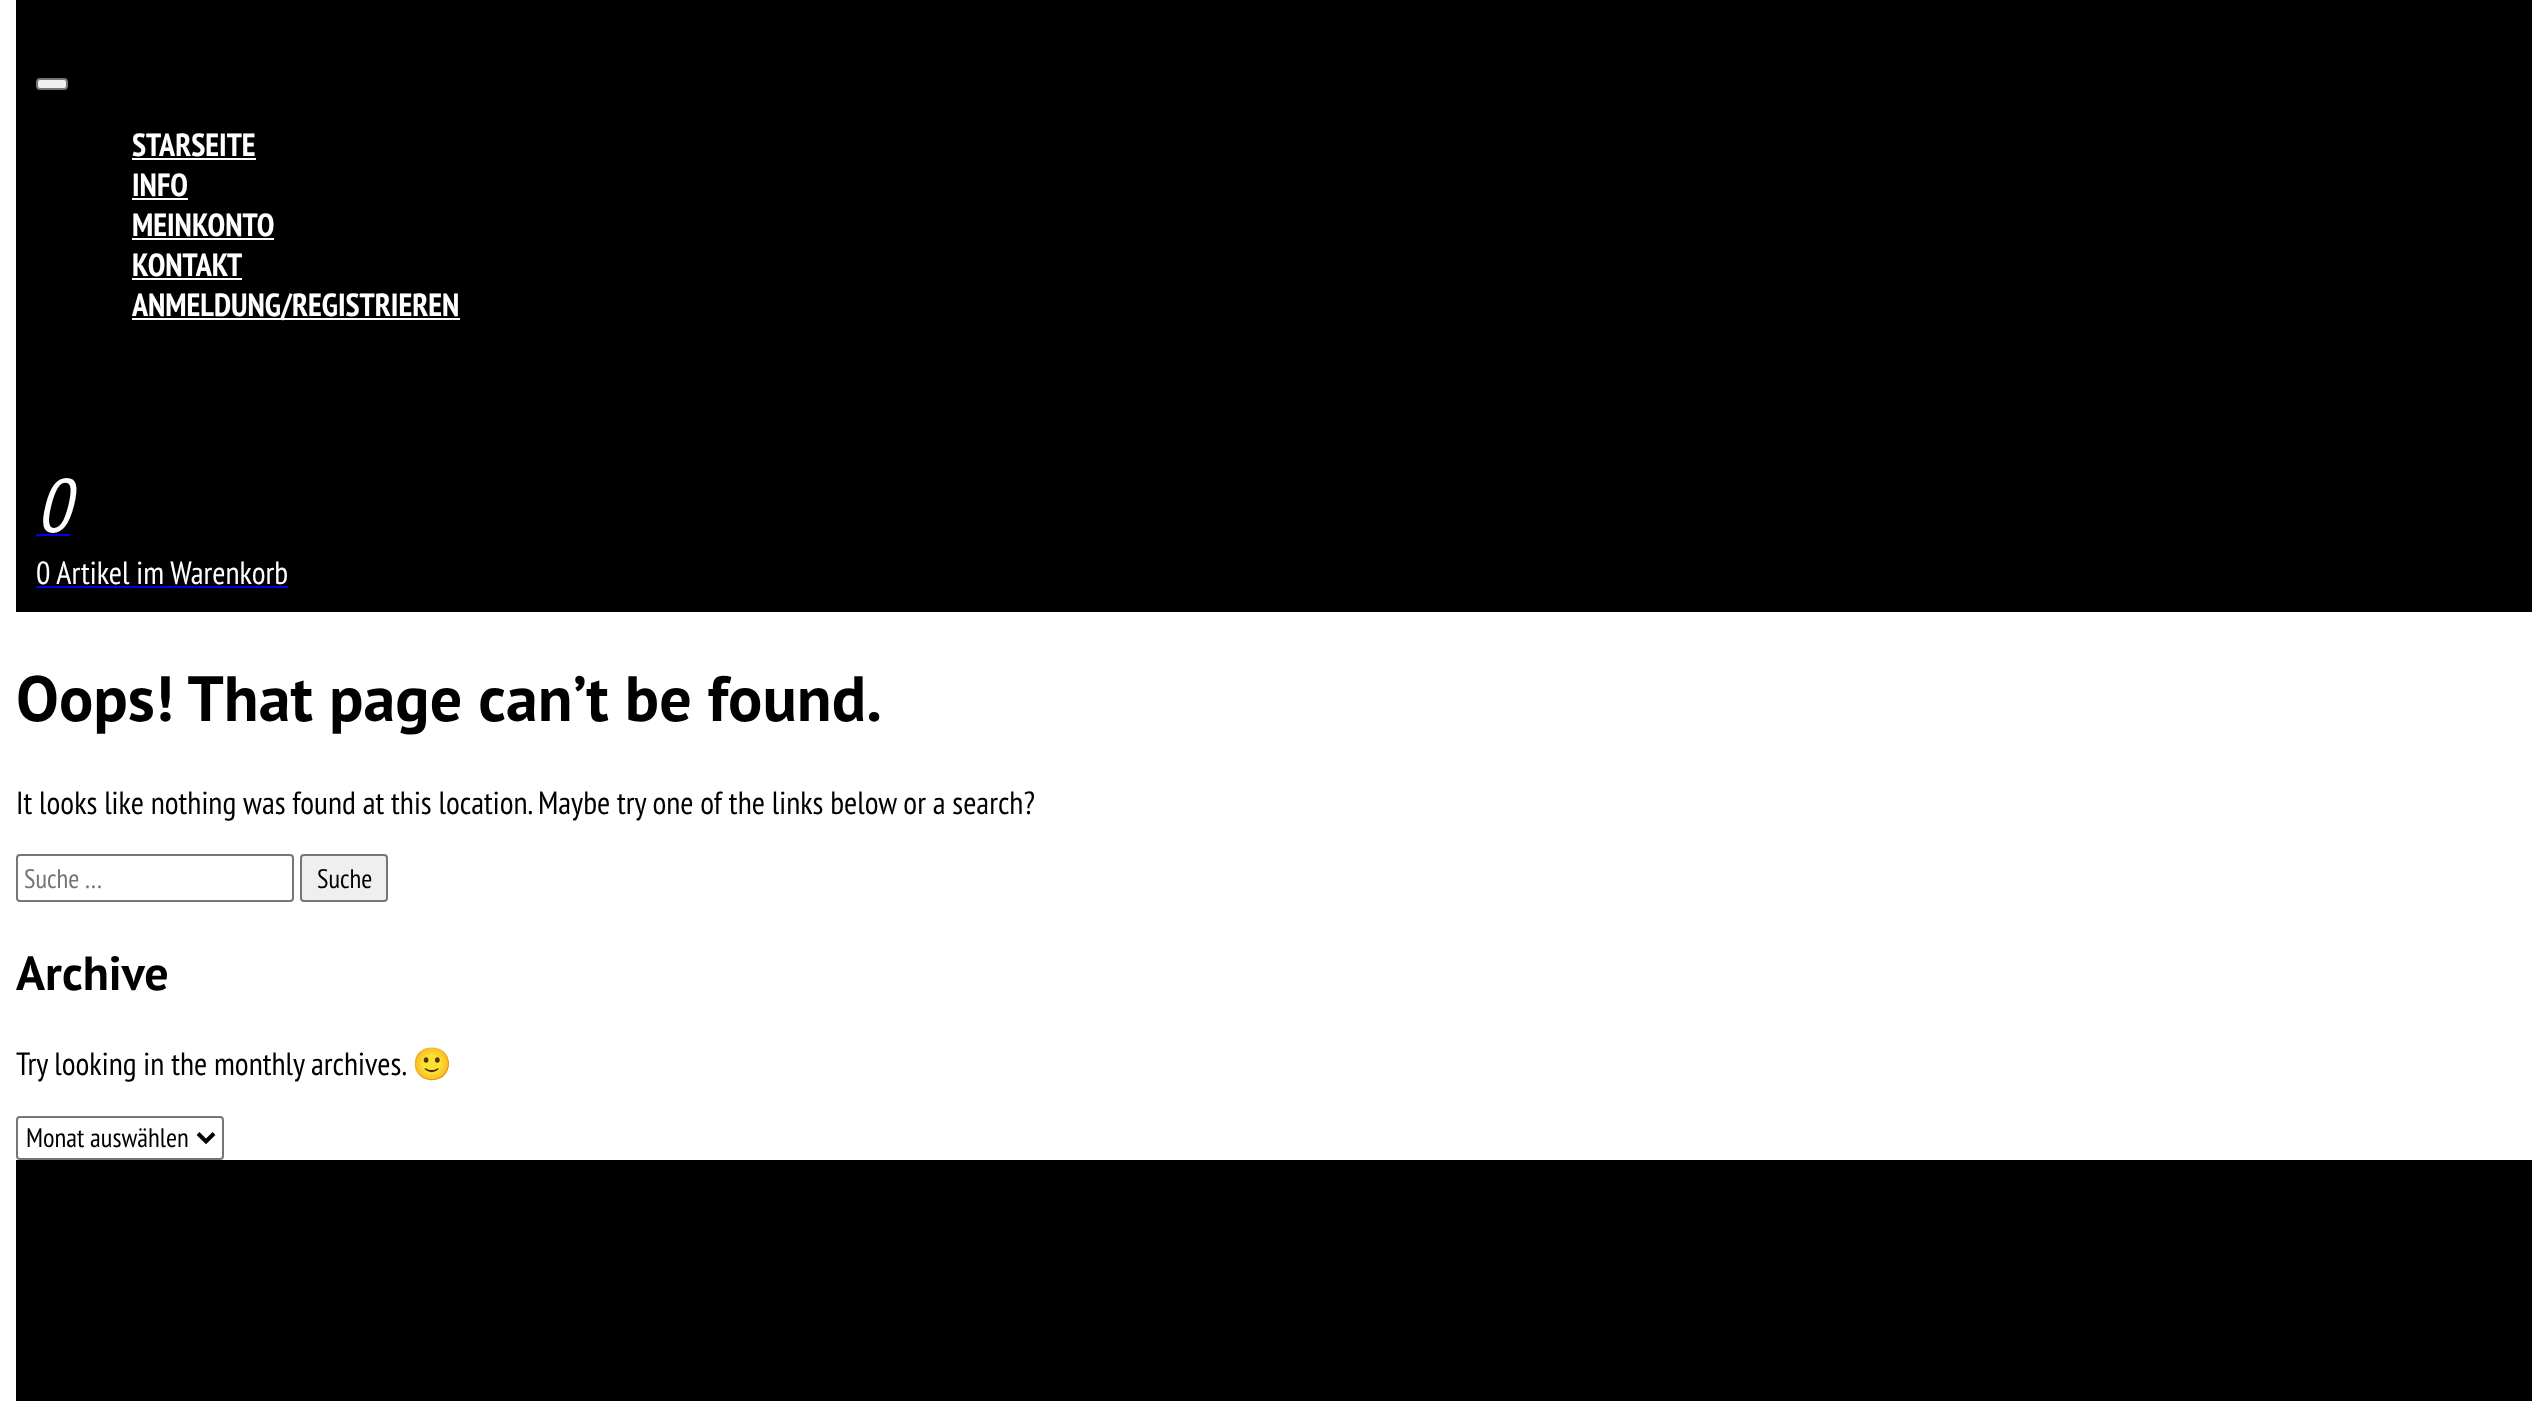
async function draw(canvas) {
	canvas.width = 2548;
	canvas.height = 1401;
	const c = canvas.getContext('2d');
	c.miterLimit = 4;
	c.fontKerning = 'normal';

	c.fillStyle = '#fff';
	c.fillRect(0, 0, 2548, 1401);
	c.fillStyle = '#000';
	c.fillRect(16, 0, 2516, 612);
	c.fillStyle = '#efefef';
	c.beginPath();
	c.roundRect(37, 79, 30, 10, 3);
	c.fill();
	c.strokeStyle = '#767676';
	c.lineWidth = 2;
	c.stroke();
	c.font = 'bold 32px PT Sans Narrow';
	c.fillStyle = '#fff';
	c.fillText('STARSEITE', 132, 156);
	c.fillRect(132, 158, 124, 2);
	c.fillText('INFO', 132, 196);
	c.fillRect(132, 198, 56, 2);
	c.fillText('MEINKONTO', 132, 236);
	c.fillRect(132, 238, 142, 2);
	c.fillText('KONTAKT', 132, 276);
	c.fillRect(132, 278, 110, 2);
	c.fillRect(132, 318, 328, 2);
	c.fillText('ANMELDUNG/REGISTRIEREN', 132, 316);
	c.font = 'italic 76px PT Sans Narrow';
	c.fillText('0', 36, 532);
	c.fillStyle = '#00e';
	c.fillRect(36, 534, 34, 2);
	c.font = '32px PT Sans Narrow';
	c.fillStyle = '#fff';
	c.fillText('0 Artikel im Warenkorb', 36, 584);
	c.fillStyle = '#00e';
	c.fillRect(36, 586, 252, 2);
	c.font = 'bold 64px PT Sans';
	c.fillStyle = '#000';
	c.fillText('Oops! That page can’t be found.', 16, 721);
	c.font = '32px PT Sans Narrow';
	c.fillText('It looks like nothing was found at this location. Maybe try one of the links below or a search?', 16, 814);
	c.beginPath();
	c.roundRect(17, 855, 276, 46, 3);
	c.stroke();
	c.font = '26.75px PT Sans Narrow';
	c.fillStyle = '#757575';
	c.fillText('Suche …', 24, 888);
	c.fillStyle = '#efefef';
	c.beginPath();
	c.roundRect(301, 855, 86, 46, 3);
	c.fill();
	c.stroke();
	c.fillStyle = '#000';
	c.fillText('Suche', 317, 888);
	c.font = 'bold 48px PT Sans';
	c.fillText('Archive', 16, 990);
	c.font = '32px PT Sans Narrow';
	c.fillText('Try looking in the monthly archives.', 16, 1075);
	c.font = '32px Noto Color Emoji';
	c.fillText('🙂', 412, 1075);
	c.beginPath();
	c.roundRect(17, 1117, 206, 42, 3);
	c.stroke();
	c.beginPath();
	c.moveTo(198, 1133.5);
	c.lineTo(206, 1141.5);
	c.lineTo(214, 1133.5);
	c.strokeStyle = '#000';
	c.lineWidth = 4;
	c.stroke();
	c.font = '26.75px PT Sans Narrow';
	c.fillText('Monat auswählen', 26, 1147);
	c.fillRect(16, 1160, 2516, 241);
}

draw(document.querySelector('canvas'));
